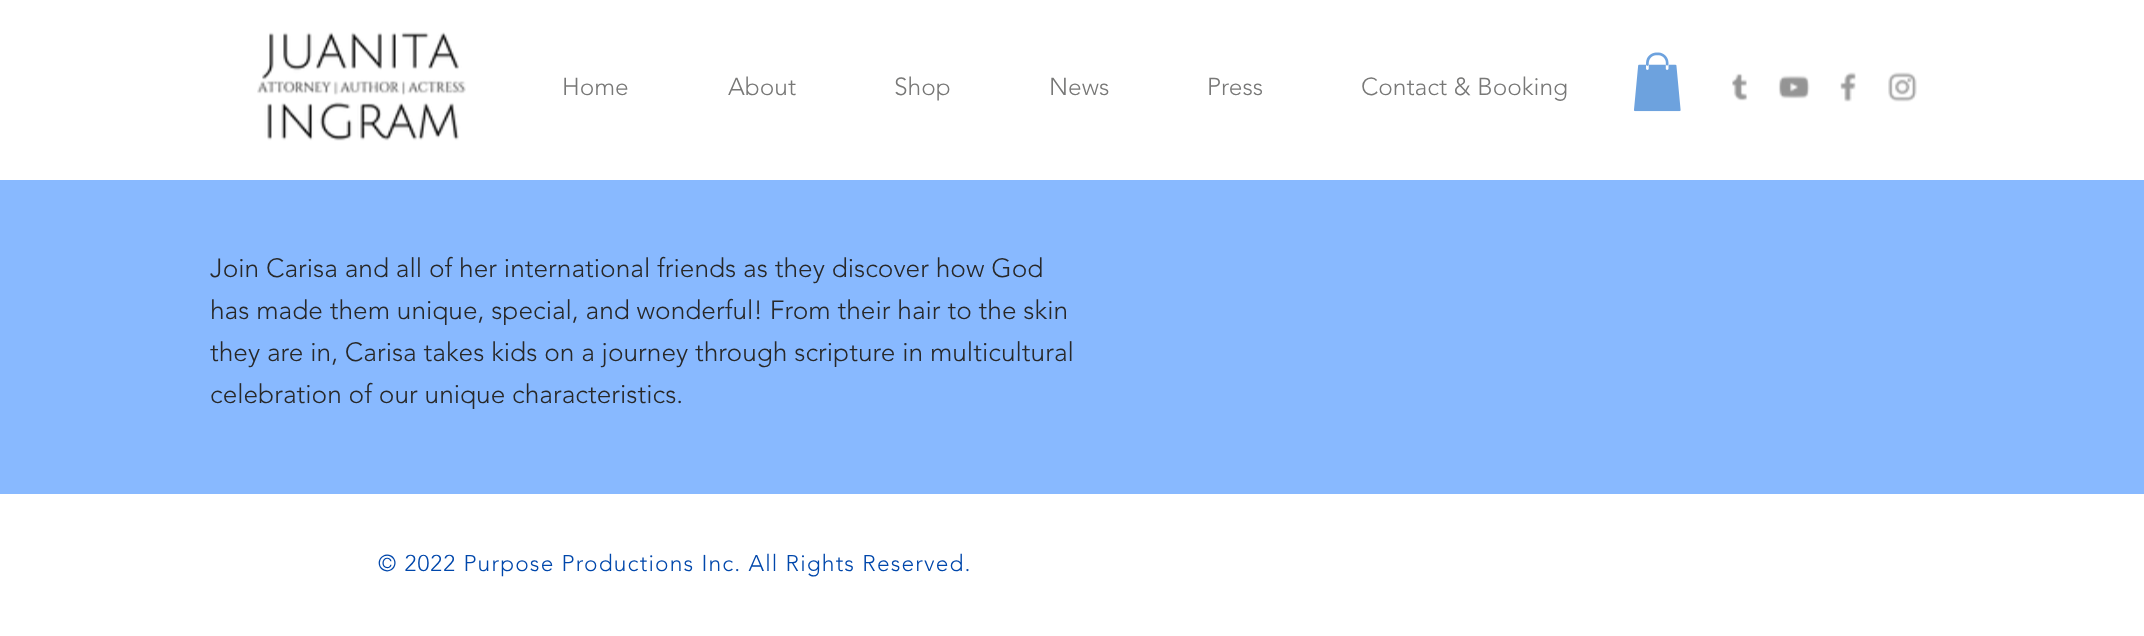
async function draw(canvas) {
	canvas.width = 2144;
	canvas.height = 636;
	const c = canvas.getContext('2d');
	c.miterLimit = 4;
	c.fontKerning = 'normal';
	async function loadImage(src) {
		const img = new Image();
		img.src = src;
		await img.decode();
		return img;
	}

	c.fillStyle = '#88b9ff';
	c.fillRect(0, 0, 2144, 636);
	c.fillStyle = '#fff';
	c.fillRect(0, 0, 2144, 180);
	c.drawImage(await loadImage('img1.png'), 257, 32, 209, 109);
	c.font = '300 24.5px "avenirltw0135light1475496"';
	c.fillStyle = '#787877';
	for (const [text, x, y] of [
		['Home', 562, 95],
		['About', 728, 95],
		['Shop', 894, 95],
		['News', 1049, 95],
		['Press', 1207, 95],
		['Contact & Booking', 1361, 95],
	]) {
		c.fillText(text, x, y);
	}
	c.drawImage(await loadImage('img2.png'), 1634, 52, 47, 60);
	c.drawImage(await loadImage('img3.png'), 1732, 73, 16, 28);
	c.drawImage(await loadImage('img4.png'), 1778, 75, 32, 24);
	c.drawImage(await loadImage('img5.png'), 1840, 72, 16, 30);
	c.drawImage(await loadImage('img6.png'), 1888, 72, 29, 30);
	c.font = '300 26.25px "avenirltw0135light1475496"';
	c.fillStyle = '#282828';
	for (const [text, x, y] of [
		['Join Carisa and all of her international friends as they discover how God', 210, 277],
		['has made them unique, special, and wonderful! From their hair to the skin', 210, 319],
		['they are in, Carisa takes kids on a journey through scripture in multicultural', 210, 361],
		['celebration of our unique characteristics.', 210, 403],
	]) {
		c.fillText(text, x, y);
	}
	c.fillStyle = '#fff';
	c.fillRect(0, 494, 2144, 142);
	c.letterSpacing = '1.15px';
	c.font = '300 22.75px "avenirltw0135light1475496"';
	c.fillStyle = '#0047ab';
	c.fillText('© 2022 Purpose Productions Inc. All Rights Reserved.', 378, 571);
}

draw(document.querySelector('canvas'));
